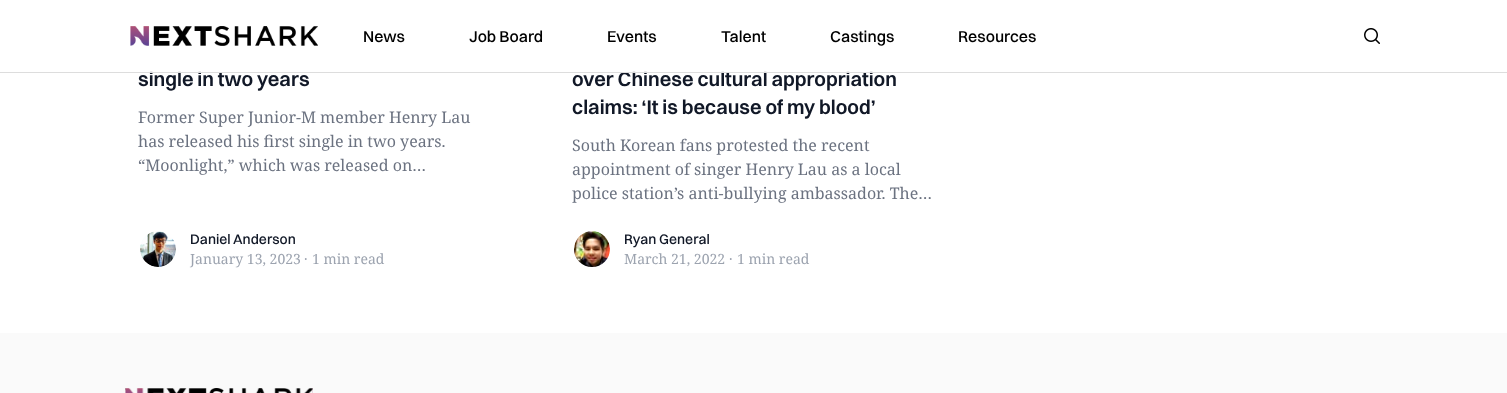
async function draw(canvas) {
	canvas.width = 1507;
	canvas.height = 393;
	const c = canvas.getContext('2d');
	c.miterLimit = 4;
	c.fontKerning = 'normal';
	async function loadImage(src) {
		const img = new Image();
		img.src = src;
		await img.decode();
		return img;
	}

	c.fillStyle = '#fff';
	c.fillRect(0, 0, 1507, 393);
	c.font = '600 20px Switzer';
	c.fillStyle = '#111827';
	c.fillText('single in two years', 138, 86);
	c.fillText('over Chinese cultural appropriation', 572, 86);
	c.fillStyle = '#ffffffcc';
	c.fillRect(149, 71, 724, 1);
	c.fillStyle = '#ddd';
	c.fillRect(0, 72, 1507, 1);
	c.drawImage(await loadImage('img1.png'), 130, 26, 188, 20);
	c.font = '500 16px Switzer';
	c.fillStyle = '#000';
	for (const [text, x, y] of [
		['News', 363, 42],
		['Job Board', 469, 42],
		['Events', 607, 42],
		['Talent', 721, 42],
		['Castings', 830, 42],
		['Resources', 958, 42],
	]) {
		c.fillText(text, x, y);
	}
	c.drawImage(await loadImage('img2.png'), 1364, 28, 16, 16);
	c.font = '16px Noto Serif';
	c.fillStyle = '#6b7280';
	for (const [text, x, y] of [
		['Former Super Junior-M member Henry Lau', 138, 123],
		['has released his first single in two years.', 138, 147],
		['“Moonlight,” which was released on…', 138, 171],
	]) {
		c.fillText(text, x, y);
	}
	c.drawImage(await loadImage('img3.png'), 140, 231, 36, 36);
	c.font = '500 14px Switzer';
	c.fillStyle = '#111827';
	c.fillText('Daniel Anderson', 190, 244);
	c.font = '14px Noto Serif';
	c.fillStyle = '#9ca3af';
	for (const [text, x, y] of [
		['January 13, 2023', 190, 264],
		['·', 304, 264],
		['1 min read', 312, 264],
	]) {
		c.fillText(text, x, y);
	}
	c.font = '600 20px Switzer';
	c.fillStyle = '#111827';
	c.fillText('claims: ‘It is because of my blood’', 572, 114);
	c.font = '16px Noto Serif';
	c.fillStyle = '#6b7280';
	for (const [text, x, y] of [
		['South Korean fans protested the recent', 572, 151],
		['appointment of singer Henry Lau as a local', 572, 175],
		['police station’s anti-bullying ambassador. The…', 572, 199],
	]) {
		c.fillText(text, x, y);
	}
	c.drawImage(await loadImage('img4.png'), 574, 231, 36, 36);
	c.font = '500 14px Switzer';
	c.fillStyle = '#111827';
	c.fillText('Ryan General', 624, 244);
	c.font = '14px Noto Serif';
	c.fillStyle = '#9ca3af';
	for (const [text, x, y] of [
		['March 21, 2022', 624, 264],
		['·', 729, 264],
		['1 min read', 737, 264],
	]) {
		c.fillText(text, x, y);
	}
	c.fillStyle = '#fafafa';
	c.fillRect(0, 333, 1507, 60);
	c.drawImage(await loadImage('img5.png'), 125, 388, 188, 5);
}

draw(document.querySelector('canvas'));
